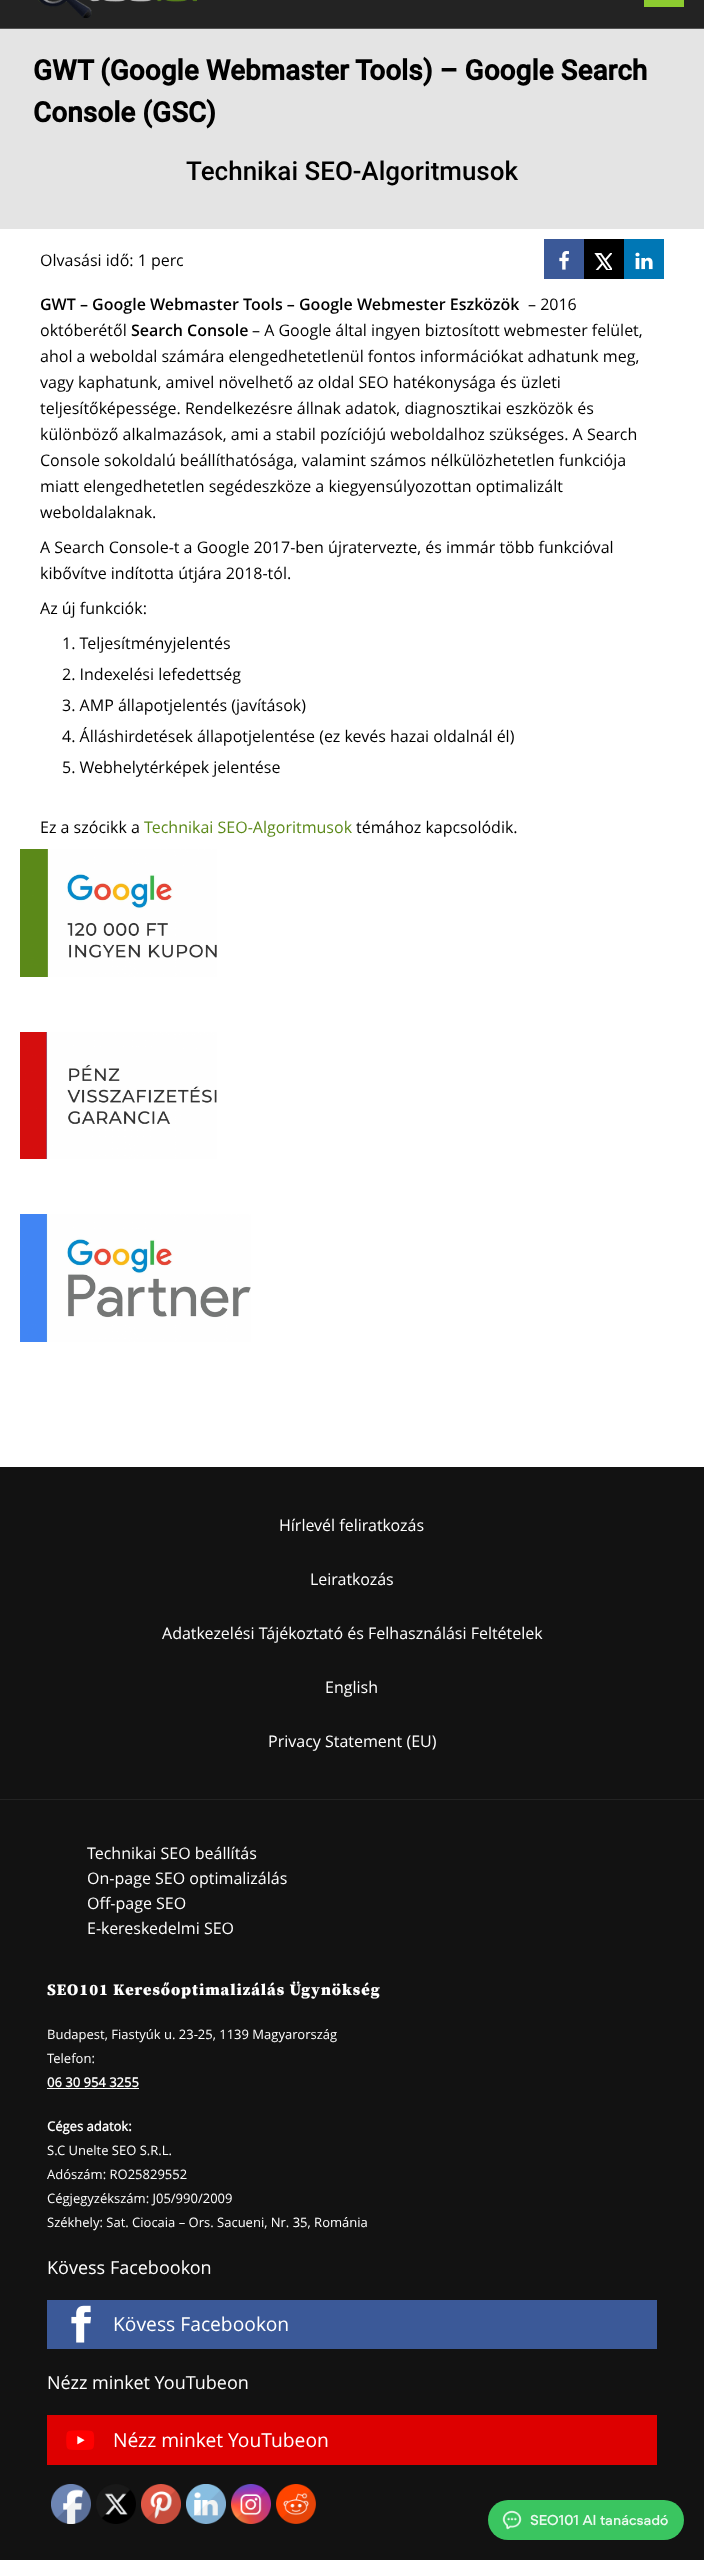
async function draw(canvas) {
	canvas.width = 704;
	canvas.height = 2560;
	const c = canvas.getContext('2d');
	c.miterLimit = 4;
	c.fontKerning = 'normal';
	async function loadImage(src) {
		const img = new Image();
		img.src = src;
		await img.decode();
		return img;
	}

	c.fillStyle = '#fff';
	c.fillRect(0, 0, 704, 2560);
	c.fillStyle = '#232323';
	c.fillRect(0, 0, 704, 28);
	c.fillStyle = '#525252';
	c.fillRect(0, 28, 704, 1);
	c.drawImage(await loadImage('img1.png'), 38, 0, 159, 18);
	c.fillStyle = '#8ccb30';
	c.fillRect(644, 0, 40, 7);
	c.fillStyle = '#e4e4e4';
	c.fillRect(0, 29, 704, 200);
	c.font = 'bold 28px Roboto';
	c.fillStyle = '#000';
	c.fillText('GWT (Google Webmaster Tools) – Google Search', 33, 80);
	c.fillText('Console (GSC)', 33, 122);
	c.font = '500 26px Roboto';
	c.fillText('Technikai SEO-Algoritmusok', 186, 180);
	c.font = '16px Open Sans';
	c.fillText('Olvasási idő: 1 perc', 40, 266);
	c.fillStyle = '#3b5998';
	c.fillRect(544, 239, 40, 40);
	c.drawImage(await loadImage('img2.png'), 559, 251, 10, 19);
	c.fillStyle = '#000';
	c.fillRect(584, 239, 40, 40);
	c.drawImage(await loadImage('img3.png'), 594, 253, 18, 17);
	c.fillStyle = '#0077b5';
	c.fillRect(624, 239, 40, 40);
	c.drawImage(await loadImage('img4.png'), 635, 252, 18, 18);
	c.font = '600 16px Open Sans';
	c.fillStyle = '#000';
	c.fillText('GWT – Google Webmaster Tools – Google Webmester Eszközök', 40, 310);
	c.font = '16px Open Sans';
	c.fillText('– 2016', 528, 310);
	c.fillText('októberétől', 40, 336);
	c.font = '600 16px Open Sans';
	c.fillText('Search Console', 131, 336);
	c.font = '16px Open Sans';
	for (const [text, x, y] of [
		['– A Google által ingyen biztosított webmester felület,', 252, 336],
		['ahol a weboldal számára elengedhetetlenül fontos információkat adhatunk meg,', 40, 362],
		['vagy kaphatunk, amivel növelhető az oldal SEO hatékonysága és üzleti', 40, 388],
		['teljesítőképessége. Rendelkezésre állnak adatok, diagnosztikai eszközök és', 40, 414],
		['különböző alkalmazások, ami a stabil pozíciójú weboldalhoz szükséges. A Search', 40, 440],
		['Console sokoldalú beállíthatósága, valamint számos nélkülözhetetlen funkciója', 40, 466],
		['miatt elengedhetetlen segédeszköze a kiegyensúlyozottan optimalizált', 40, 492],
		['weboldalaknak.', 40, 518],
		['A Search Console-t a Google 2017-ben újratervezte, és immár több funkcióval', 40, 553],
		['kibővítve indította útjára 2018-tól.', 40, 579],
		['Az új funkciók:', 40, 614],
		['1. Teljesítményjelentés', 62, 649],
		['2. Indexelési lefedettség', 62, 680],
		['3. AMP állapotjelentés (javítások)', 62, 711],
		['4. Álláshirdetések állapotjelentése (ez kevés hazai oldalnál él)', 62, 742],
		['5. Webhelytérképek jelentése', 62, 773],
		['Ez a szócikk a', 40, 833],
	]) {
		c.fillText(text, x, y);
	}
	c.fillStyle = '#5c8a1a';
	c.fillText('Technikai SEO-Algoritmusok', 144, 833);
	c.fillStyle = '#000';
	c.fillText('témához kapcsolódik.', 356, 833);
	c.drawImage(await loadImage('img5.png'), 20, 849, 197, 128);
	c.drawImage(await loadImage('img6.png'), 20, 1032, 197, 127);
	c.drawImage(await loadImage('img7.png'), 20, 1214, 231, 128);
	c.fillStyle = '#121212';
	c.fillRect(0, 1467, 704, 332);
	c.fillStyle = '#232323';
	c.fillRect(0, 1799, 704, 1);
	c.fillStyle = '#fff';
	for (const [text, x, y] of [
		['Hírlevél feliratkozás', 279, 1531],
		['Leiratkozás', 310, 1585],
		['Adatkezelési Tájékoztató és Felhasználási Feltételek', 162, 1639],
		['English', 325, 1693],
		['Privacy Statement (EU)', 268, 1747],
	]) {
		c.fillText(text, x, y);
	}
	c.fillStyle = '#121212';
	c.fillRect(0, 1800, 704, 760);
	c.fillStyle = '#fff';
	for (const [text, x, y] of [
		['Technikai SEO beállítás', 87, 1859],
		['On-page SEO optimalizálás', 87, 1884],
		['Off-page SEO', 87, 1909],
		['E-kereskedelmi SEO', 87, 1934],
	]) {
		c.fillText(text, x, y);
	}
	c.letterSpacing = '1px';
	c.font = '900 16px Source Serif Pro';
	c.fillText('SEO101 Keresőoptimalizálás Ügynökség', 47, 1995);
	c.letterSpacing = '0px';
	c.font = '13px Open Sans';
	c.fillText('Budapest, Fiastyúk u. 23-25, 1139 Magyarország', 47, 2039);
	c.fillText('Telefon:', 47, 2063);
	c.font = 'bold 13px Open Sans';
	c.fillText('06 30 954 3255', 47, 2087);
	c.fillRect(47, 2088, 92, 1);
	c.fillText('Céges adatok:', 47, 2131);
	c.font = '13px Open Sans';
	for (const [text, x, y] of [
		['S.C Unelte SEO S.R.L.', 47, 2155],
		['Adószám: RO25829552', 47, 2179],
		['Cégjegyzékszám: J05/990/2009', 47, 2203],
		['Székhely: Sat. Ciocaia – Ors. Sacueni, Nr. 35, Románia', 47, 2227],
	]) {
		c.fillText(text, x, y);
	}
	c.font = '18px Open Sans';
	c.fillText('Kövess Facebookon', 47, 2274);
	c.fillStyle = '#3b5998';
	c.fillRect(47, 2300, 610, 49);
	c.drawImage(await loadImage('img8.png'), 71, 2305, 20, 38);
	c.font = '19.25px Open Sans';
	c.fillStyle = '#fff';
	c.fillText('Kövess Facebookon', 113, 2331);
	c.font = '18px Open Sans';
	c.fillText('Nézz minket YouTubeon', 47, 2389);
	c.fillStyle = '#d00';
	c.fillRect(47, 2415, 610, 50);
	c.drawImage(await loadImage('img9.png'), 66, 2430, 29, 20);
	c.font = '19.25px Open Sans';
	c.fillStyle = '#fff';
	c.fillText('Nézz minket YouTubeon', 113, 2447);
	c.drawImage(await loadImage('img10.png'), 51, 2484, 40, 40);
	c.drawImage(await loadImage('img11.png'), 96, 2484, 40, 40);
	c.drawImage(await loadImage('img12.png'), 141, 2484, 40, 40);
	c.drawImage(await loadImage('img13.png'), 186, 2484, 40, 40);
	c.drawImage(await loadImage('img14.png'), 231, 2484, 40, 40);
	c.drawImage(await loadImage('img15.png'), 276, 2484, 40, 40);
	c.fillStyle = '#3ac560';
	c.beginPath();
	c.roundRect(488, 2500, 196, 40, 20);
	c.fill();
	c.drawImage(await loadImage('img16.png'), 502, 2510, 20, 20);
	c.font = '600 14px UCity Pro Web';
	c.fillStyle = '#ebf9ef';
	c.fillText('SEO101 AI tanácsadó', 530, 2525);
}

draw(document.querySelector('canvas'));
